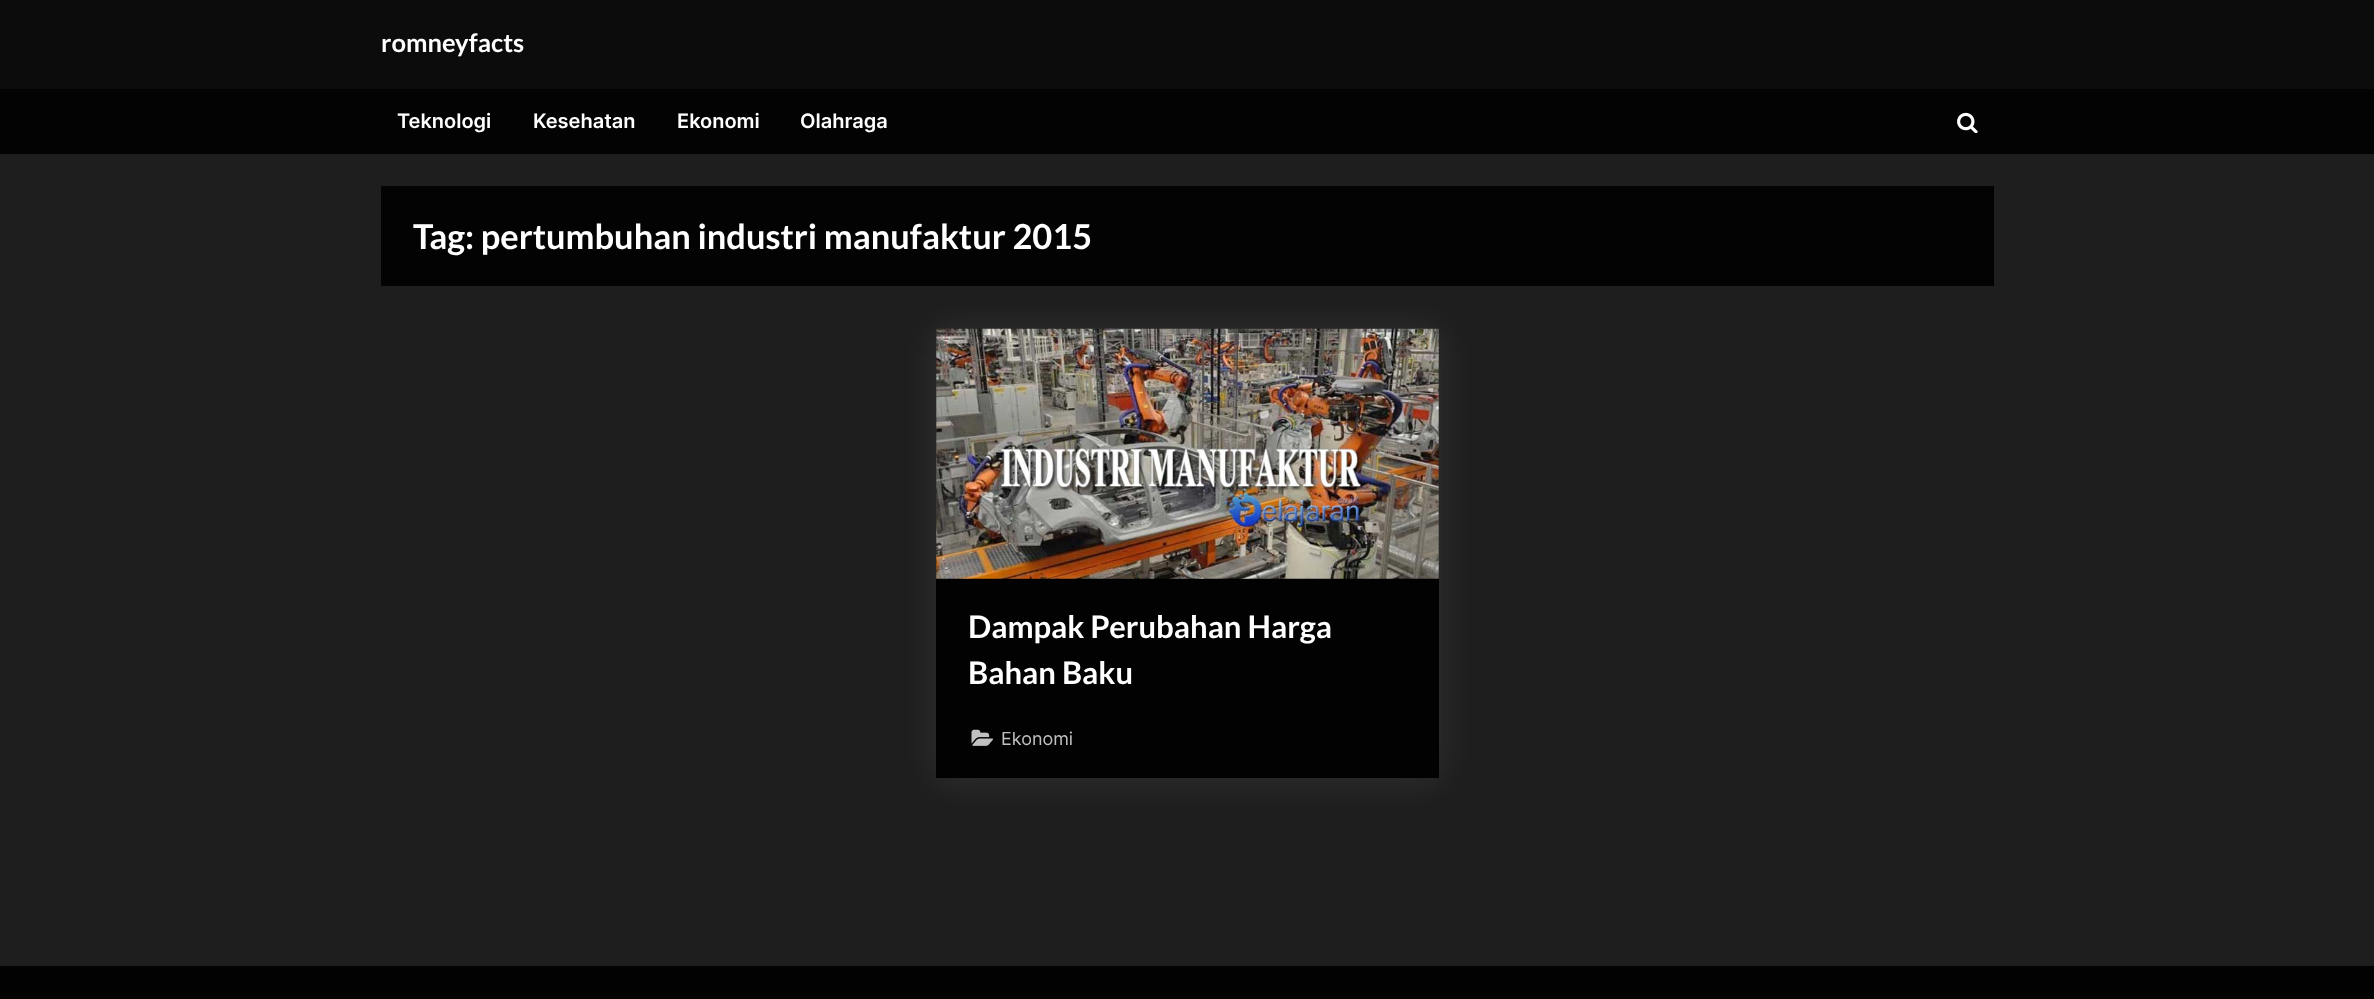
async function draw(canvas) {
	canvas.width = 2374;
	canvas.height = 999;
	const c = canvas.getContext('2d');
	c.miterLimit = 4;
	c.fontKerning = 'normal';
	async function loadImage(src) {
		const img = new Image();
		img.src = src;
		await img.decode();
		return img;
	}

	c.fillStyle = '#1e1e1e';
	c.fillRect(0, 0, 2374, 999);
	c.fillStyle = '#0c0c0c';
	c.fillRect(0, 0, 2374, 89);
	c.font = 'bold 25.5px Lato';
	c.fillStyle = '#fff';
	c.fillText('romneyfacts', 381, 52);
	c.fillStyle = '#030303';
	c.fillRect(0, 89, 2374, 65);
	c.font = '600 20px Inter';
	c.fillStyle = '#fff';
	for (const [text, x, y] of [
		['Teknologi', 397, 128],
		['Kesehatan', 533, 128],
		['Ekonomi', 677, 128],
		['Olahraga', 800, 128],
	]) {
		c.fillText(text, x, y);
	}
	c.drawImage(await loadImage('img1.png'), 1957, 112, 21, 21);
	c.fillStyle = '#030303';
	c.fillRect(381, 186, 1613, 100);
	c.font = 'bold 34.4px Lato';
	c.fillStyle = '#fff';
	c.fillText('Tag: pertumbuhan industri manufaktur 2015', 413, 249);
	c.save();
	c.beginPath();
	c.moveTo(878, 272);
	c.lineTo(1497, 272);
	c.lineTo(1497, 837);
	c.lineTo(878, 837);
	c.closePath();
	c.moveTo(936, 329);
	c.lineTo(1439, 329);
	c.lineTo(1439, 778);
	c.lineTo(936, 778);
	c.closePath();
	c.clip('evenodd');
	c.fillStyle = '#ffffff17';
	c.filter = 'blur(19px)';
	c.beginPath();
	c.rect(936, 330, 503, 449);
	c.fill();
	c.filter = 'none';
	c.restore();
	c.fillStyle = '#000000e8';
	c.fillRect(936, 329, 503, 449);
	c.drawImage(await loadImage('img2.png'), 936, 328, 503, 251);
	c.font = 'bold 31px Lato';
	c.fillStyle = '#fff';
	c.fillText('Dampak Perubahan Harga', 968, 638);
	c.fillText('Bahan Baku', 968, 684);
	c.drawImage(await loadImage('img3.png'), 971, 729, 22, 17);
	c.font = '18px Inter';
	c.fillStyle = '#c0c0c0';
	c.fillText('Ekonomi', 1001, 745);
	c.fillStyle = '#020202';
	c.fillRect(0, 966, 2374, 33);
}

draw(document.querySelector('canvas'));
